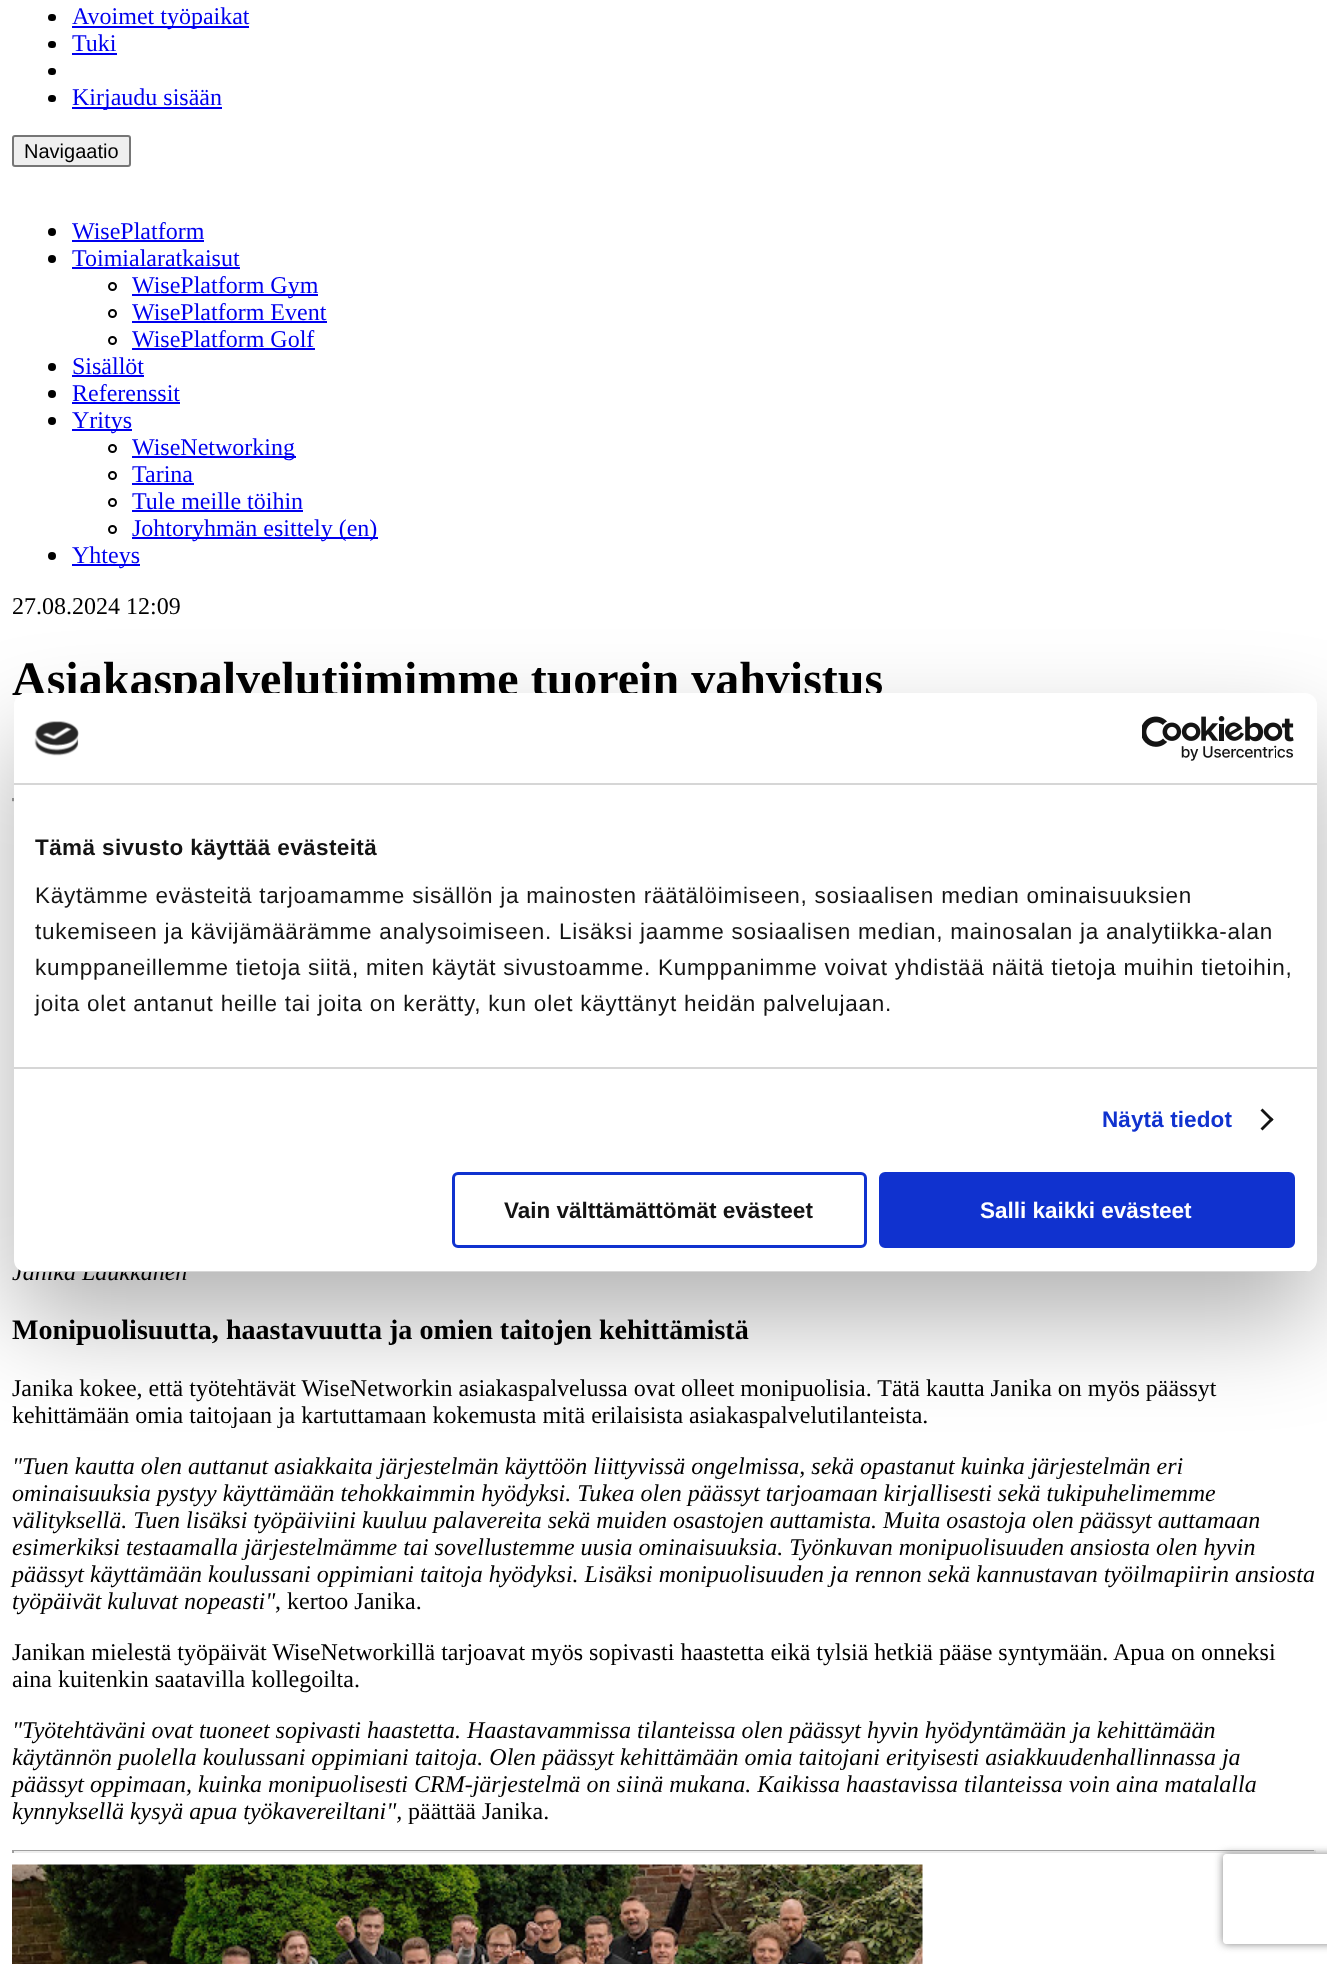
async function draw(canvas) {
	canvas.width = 1327;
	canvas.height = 1964;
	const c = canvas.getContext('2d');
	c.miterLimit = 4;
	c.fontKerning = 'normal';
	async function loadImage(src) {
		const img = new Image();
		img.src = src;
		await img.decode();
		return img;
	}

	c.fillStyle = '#fff';
	c.fillRect(0, 0, 1327, 1964);
	c.fillStyle = '#000';
	c.beginPath();
	c.roundRect(48, 14, 8, 7, 3.5);
	c.fill();
	c.fillStyle = '#00e';
	c.fillRect(72, 26, 177, 2);
	c.font = '24px Liberation Serif';
	c.fillText('Avoimet työpaikat', 72, 24);
	c.fillStyle = '#000';
	c.beginPath();
	c.roundRect(48, 41, 8, 7, 3.5);
	c.fill();
	c.fillStyle = '#00e';
	c.fillText('Tuki', 72, 51);
	c.fillRect(72, 53, 45, 2);
	c.fillStyle = '#000';
	c.beginPath();
	c.roundRect(48, 68, 8, 7, 3.5);
	c.fill();
	c.beginPath();
	c.roundRect(48, 95, 8, 7, 3.5);
	c.fill();
	c.fillStyle = '#00e';
	c.fillRect(72, 107, 150, 2);
	c.fillText('Kirjaudu sisään', 72, 105);
	c.fillStyle = '#efefef';
	c.beginPath();
	c.roundRect(13, 136, 117, 30, 2);
	c.fill();
	c.strokeStyle = '#767676';
	c.lineWidth = 2;
	c.stroke();
	c.font = '20px Liberation Sans';
	c.fillStyle = '#000';
	c.fillText('Navigaatio', 24, 158);
	c.beginPath();
	c.arc(52, 232, 4, 0, 2 * Math.PI);
	c.fill();
	c.font = '24px Liberation Serif';
	c.fillStyle = '#00e';
	c.fillText('WisePlatform', 72, 239);
	c.fillRect(72, 240, 132, 2);
	c.fillStyle = '#000';
	c.beginPath();
	c.arc(52, 259, 4, 0, 2 * Math.PI);
	c.fill();
	c.fillStyle = '#00e';
	c.fillText('Toimialaratkaisut', 72, 266);
	c.fillRect(72, 267, 168, 2);
	c.beginPath();
	c.arc(112.5, 286.5, 3.5, 0, 2 * Math.PI);
	c.strokeStyle = '#000';
	c.stroke();
	c.fillRect(132, 294, 186, 2);
	c.fillText('WisePlatform Gym', 132, 293);
	c.beginPath();
	c.arc(112.5, 313.5, 3.5, 0, 2 * Math.PI);
	c.stroke();
	c.fillText('WisePlatform Event', 132, 320);
	c.fillRect(132, 321, 195, 2);
	c.beginPath();
	c.arc(112.5, 340.5, 3.5, 0, 2 * Math.PI);
	c.stroke();
	c.fillText('WisePlatform Golf', 132, 347);
	c.fillRect(132, 348, 183, 2);
	c.fillStyle = '#000';
	c.beginPath();
	c.arc(52, 367, 4, 0, 2 * Math.PI);
	c.fill();
	c.fillStyle = '#00e';
	c.fillText('Sisällöt', 72, 374);
	c.fillRect(72, 375, 72, 2);
	c.fillStyle = '#000';
	c.beginPath();
	c.arc(52, 394, 4, 0, 2 * Math.PI);
	c.fill();
	c.fillStyle = '#00e';
	c.fillText('Referenssit', 72, 401);
	c.fillRect(72, 402, 108, 2);
	c.fillStyle = '#000';
	c.beginPath();
	c.arc(52, 421, 4, 0, 2 * Math.PI);
	c.fill();
	c.fillStyle = '#00e';
	c.fillRect(72, 429, 60, 2);
	c.fillText('Yritys', 72, 428);
	c.beginPath();
	c.arc(112.5, 448.5, 3.5, 0, 2 * Math.PI);
	c.stroke();
	c.fillRect(132, 456, 164, 2);
	c.fillText('WiseNetworking', 132, 455);
	c.beginPath();
	c.arc(112.5, 475.5, 3.5, 0, 2 * Math.PI);
	c.stroke();
	c.fillText('Tarina', 132, 482);
	c.fillRect(132, 483, 62, 2);
	c.beginPath();
	c.arc(112.5, 502.5, 3.5, 0, 2 * Math.PI);
	c.stroke();
	c.fillText('Tule meille töihin', 132, 509);
	c.fillRect(132, 510, 171, 2);
	c.beginPath();
	c.arc(112.5, 529.5, 3.5, 0, 2 * Math.PI);
	c.stroke();
	c.fillRect(132, 537, 246, 2);
	c.fillText('Johtoryhmän esittely (en)', 132, 536);
	c.fillStyle = '#000';
	c.beginPath();
	c.arc(52, 556, 4, 0, 2 * Math.PI);
	c.fill();
	c.fillStyle = '#00e';
	c.fillRect(72, 564, 68, 2);
	c.fillText('Yhteys', 72, 563);
	c.fillStyle = '#000';
	c.fillText('27.08.2024 12:09', 12, 614);
	c.font = 'bold 48px Liberation Serif';
	c.fillText('Asiakaspalvelutiimimme tuorein vahvistus', 12, 695);
	c.fillStyle = '#eee';
	c.fillRect(12, 801, 2, 1);
	c.fillStyle = '#9f9f9f';
	c.fillRect(12, 798, 2, 3);
	c.font = 'italic 24px Liberation Serif';
	c.fillStyle = '#000';
	c.fillText('Janika Laukkanen', 12, 1280);
	c.font = 'bold 28.1px Liberation Serif';
	c.fillText('Monipuolisuutta, haastavuutta ja omien taitojen kehittämistä', 12, 1339);
	c.font = '24px Liberation Serif';
	c.fillText('Janika kokee, että työtehtävät WiseNetworkin asiakaspalvelussa ovat olleet monipuolisia. Tätä kautta Janika on myös päässyt', 12, 1396);
	c.fillText('kehittämään omia taitojaan ja kartuttamaan kokemusta mitä erilaisista asiakaspalvelutilanteista.', 12, 1423);
	c.font = 'italic 24px Liberation Serif';
	for (const [text, x, y] of [
		['"Tuen kautta olen auttanut asiakkaita järjestelmän käyttöön liittyvissä ongelmissa, sekä opastanut kuinka järjestelmän eri', 12, 1474],
		['ominaisuuksia pystyy käyttämään tehokkaimmin hyödyksi. Tukea olen päässyt tarjoamaan kirjallisesti sekä tukipuhelimemme', 12, 1501],
		['välityksellä. Tuen lisäksi työpäiviini kuuluu palavereita sekä muiden osastojen auttamista. Muita osastoja olen päässyt auttamaan', 12, 1528],
		['esimerkiksi testaamalla järjestelmämme tai sovellustemme uusia ominaisuuksia. Työnkuvan monipuolisuuden ansiosta olen hyvin', 12, 1555],
		['päässyt käyttämään koulussani oppimiani taitoja hyödyksi. Lisäksi monipuolisuuden ja rennon sekä kannustavan työilmapiirin ansiosta', 12, 1582],
		['työpäivät kuluvat nopeasti"', 12, 1609],
	]) {
		c.fillText(text, x, y);
	}
	c.font = '24px Liberation Serif';
	for (const [text, x, y] of [
		[', kertoo Janika.', 275, 1609],
		['Janikan mielestä työpäivät WiseNetworkillä tarjoavat myös sopivasti haastetta eikä tylsiä hetkiä pääse syntymään. Apua on onneksi', 12, 1660],
		['aina kuitenkin saatavilla kollegoilta.', 12, 1687],
	]) {
		c.fillText(text, x, y);
	}
	c.font = 'italic 24px Liberation Serif';
	for (const [text, x, y] of [
		['"Työtehtäväni ovat tuoneet sopivasti haastetta. Haastavammissa tilanteissa olen päässyt hyvin hyödyntämään ja kehittämään', 12, 1738],
		['käytännön puolella koulussani oppimiani taitoja. Olen päässyt kehittämään omia taitojani erityisesti asiakkuudenhallinnassa ja', 12, 1765],
		['päässyt oppimaan, kuinka monipuolisesti CRM-järjestelmä on siinä mukana. Kaikissa haastavissa tilanteissa voin aina matalalla', 12, 1792],
		['kynnyksellä kysyä apua työkavereiltani",', 12, 1819],
	]) {
		c.fillText(text, x, y);
	}
	c.font = '24px Liberation Serif';
	c.fillText('päättää Janika.', 408, 1819);
	for (const [x, y, w, h, color] of [
		[12, 1850, 1304, 1, '#9f9f9f'],
		[1314, 1850, 2, 3, '#eee'],
		[12, 1851, 1304, 2, '#eee'],
		[12, 1850, 2, 3, '#9f9f9f'],
	]) {
		c.fillStyle = color;
		c.fillRect(x, y, w, h);
	}
	c.drawImage(await loadImage('img1.png'), 12, 1864, 911, 100);
	c.fillStyle = '#0000004d';
	c.filter = 'blur(51px)';
	c.beginPath();
	c.roundRect(14, 741, 1303, 579, 12);
	c.fill();
	c.filter = 'none';
	c.fillStyle = '#fff';
	c.beginPath();
	c.roundRect(14, 693, 1303, 579, 12);
	c.fill();
	c.fillStyle = '#d6d6d6';
	c.fillRect(14, 783, 1303, 2);
	c.drawImage(await loadImage('img2.png'), 34, 721, 45, 35);
	c.drawImage(await loadImage('img3.png'), 1142, 716, 152, 45);
	c.fillRect(14, 1067, 1303, 2);
	c.letterSpacing = '0.4px';
	c.font = 'bold 22.5px Liberation Sans';
	c.fillStyle = '#141414';
	c.fillText('Tämä sivusto käyttää evästeitä', 35, 855);
	c.letterSpacing = '0.75px';
	c.font = '22.5px Liberation Sans';
	for (const [text, x, y] of [
		['Käytämme evästeitä tarjoamamme sisällön ja mainosten räätälöimiseen, sosiaalisen median ominaisuuksien', 35, 903],
		['tukemiseen ja kävijämäärämme analysoimiseen. Lisäksi jaamme sosiaalisen median, mainosalan ja analytiikka-alan', 35, 939],
		['kumppaneillemme tietoja siitä, miten käytät sivustoamme. Kumppanimme voivat yhdistää näitä tietoja muihin tietoihin,', 35, 975],
		['joita olet antanut heille tai joita on kerätty, kun olet käyttänyt heidän palvelujaan.', 35, 1011],
	]) {
		c.fillText(text, x, y);
	}
	c.letterSpacing = '0.1px';
	c.font = 'bold 22.5px Liberation Sans';
	c.fillStyle = '#1032cf';
	c.fillText('Näytä tiedot', 1102, 1127);
	c.fillStyle = '#141414';
	c.beginPath();
	c.moveTo(1262.5, 1108.5);
	c.lineTo(1273.5, 1119.5);
	c.lineTo(1271.5, 1121.5);
	c.lineTo(1260.5, 1110.5);
	c.closePath();
	c.fill();
	c.beginPath();
	c.moveTo(1271.5, 1117.5);
	c.lineTo(1273.5, 1119.5);
	c.lineTo(1262.5, 1130.5);
	c.lineTo(1260.5, 1128.5);
	c.closePath();
	c.fill();
	c.save();
	c.beginPath();
	c.roundRect(14, 693, 1303, 579, 12);
	c.clip();
	c.fillStyle = '#d6d6d6';
	c.fillRect(14, 1271, 1303, 1);
	c.restore();
	c.beginPath();
	c.roundRect(453.5, 1173.5, 412, 73, 4.5);
	c.strokeStyle = '#1032cf';
	c.lineWidth = 3;
	c.stroke();
	c.letterSpacing = '0px';
	c.fillText('Vain välttämättömät evästeet', 504, 1218);
	c.fillStyle = '#1032cf';
	c.beginPath();
	c.roundRect(880.5, 1173.5, 413, 73, 4.5);
	c.fill();
	c.stroke();
	c.fillStyle = '#fff';
	c.fillText('Salli kaikki evästeet', 980, 1218);
	c.save();
	c.beginPath();
	c.moveTo(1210, 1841);
	c.lineTo(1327, 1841);
	c.lineTo(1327, 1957);
	c.lineTo(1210, 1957);
	c.closePath();
	c.moveTo(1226, 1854);
	c.lineTo(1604, 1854);
	c.bezierCurveTo(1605.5, 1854, 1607, 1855.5, 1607, 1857);
	c.lineTo(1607, 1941);
	c.bezierCurveTo(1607, 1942.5, 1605.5, 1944, 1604, 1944);
	c.lineTo(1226, 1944);
	c.bezierCurveTo(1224.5, 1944, 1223, 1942.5, 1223, 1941);
	c.lineTo(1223, 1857);
	c.bezierCurveTo(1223, 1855.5, 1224.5, 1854, 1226, 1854);
	c.closePath();
	c.clip('evenodd');
	c.fillStyle = '#808080';
	c.filter = 'blur(4px)';
	c.beginPath();
	c.roundRect(1223, 1854, 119, 90, 3);
	c.fill();
	c.filter = 'none';
	c.restore();
}

draw(document.querySelector('canvas'));
